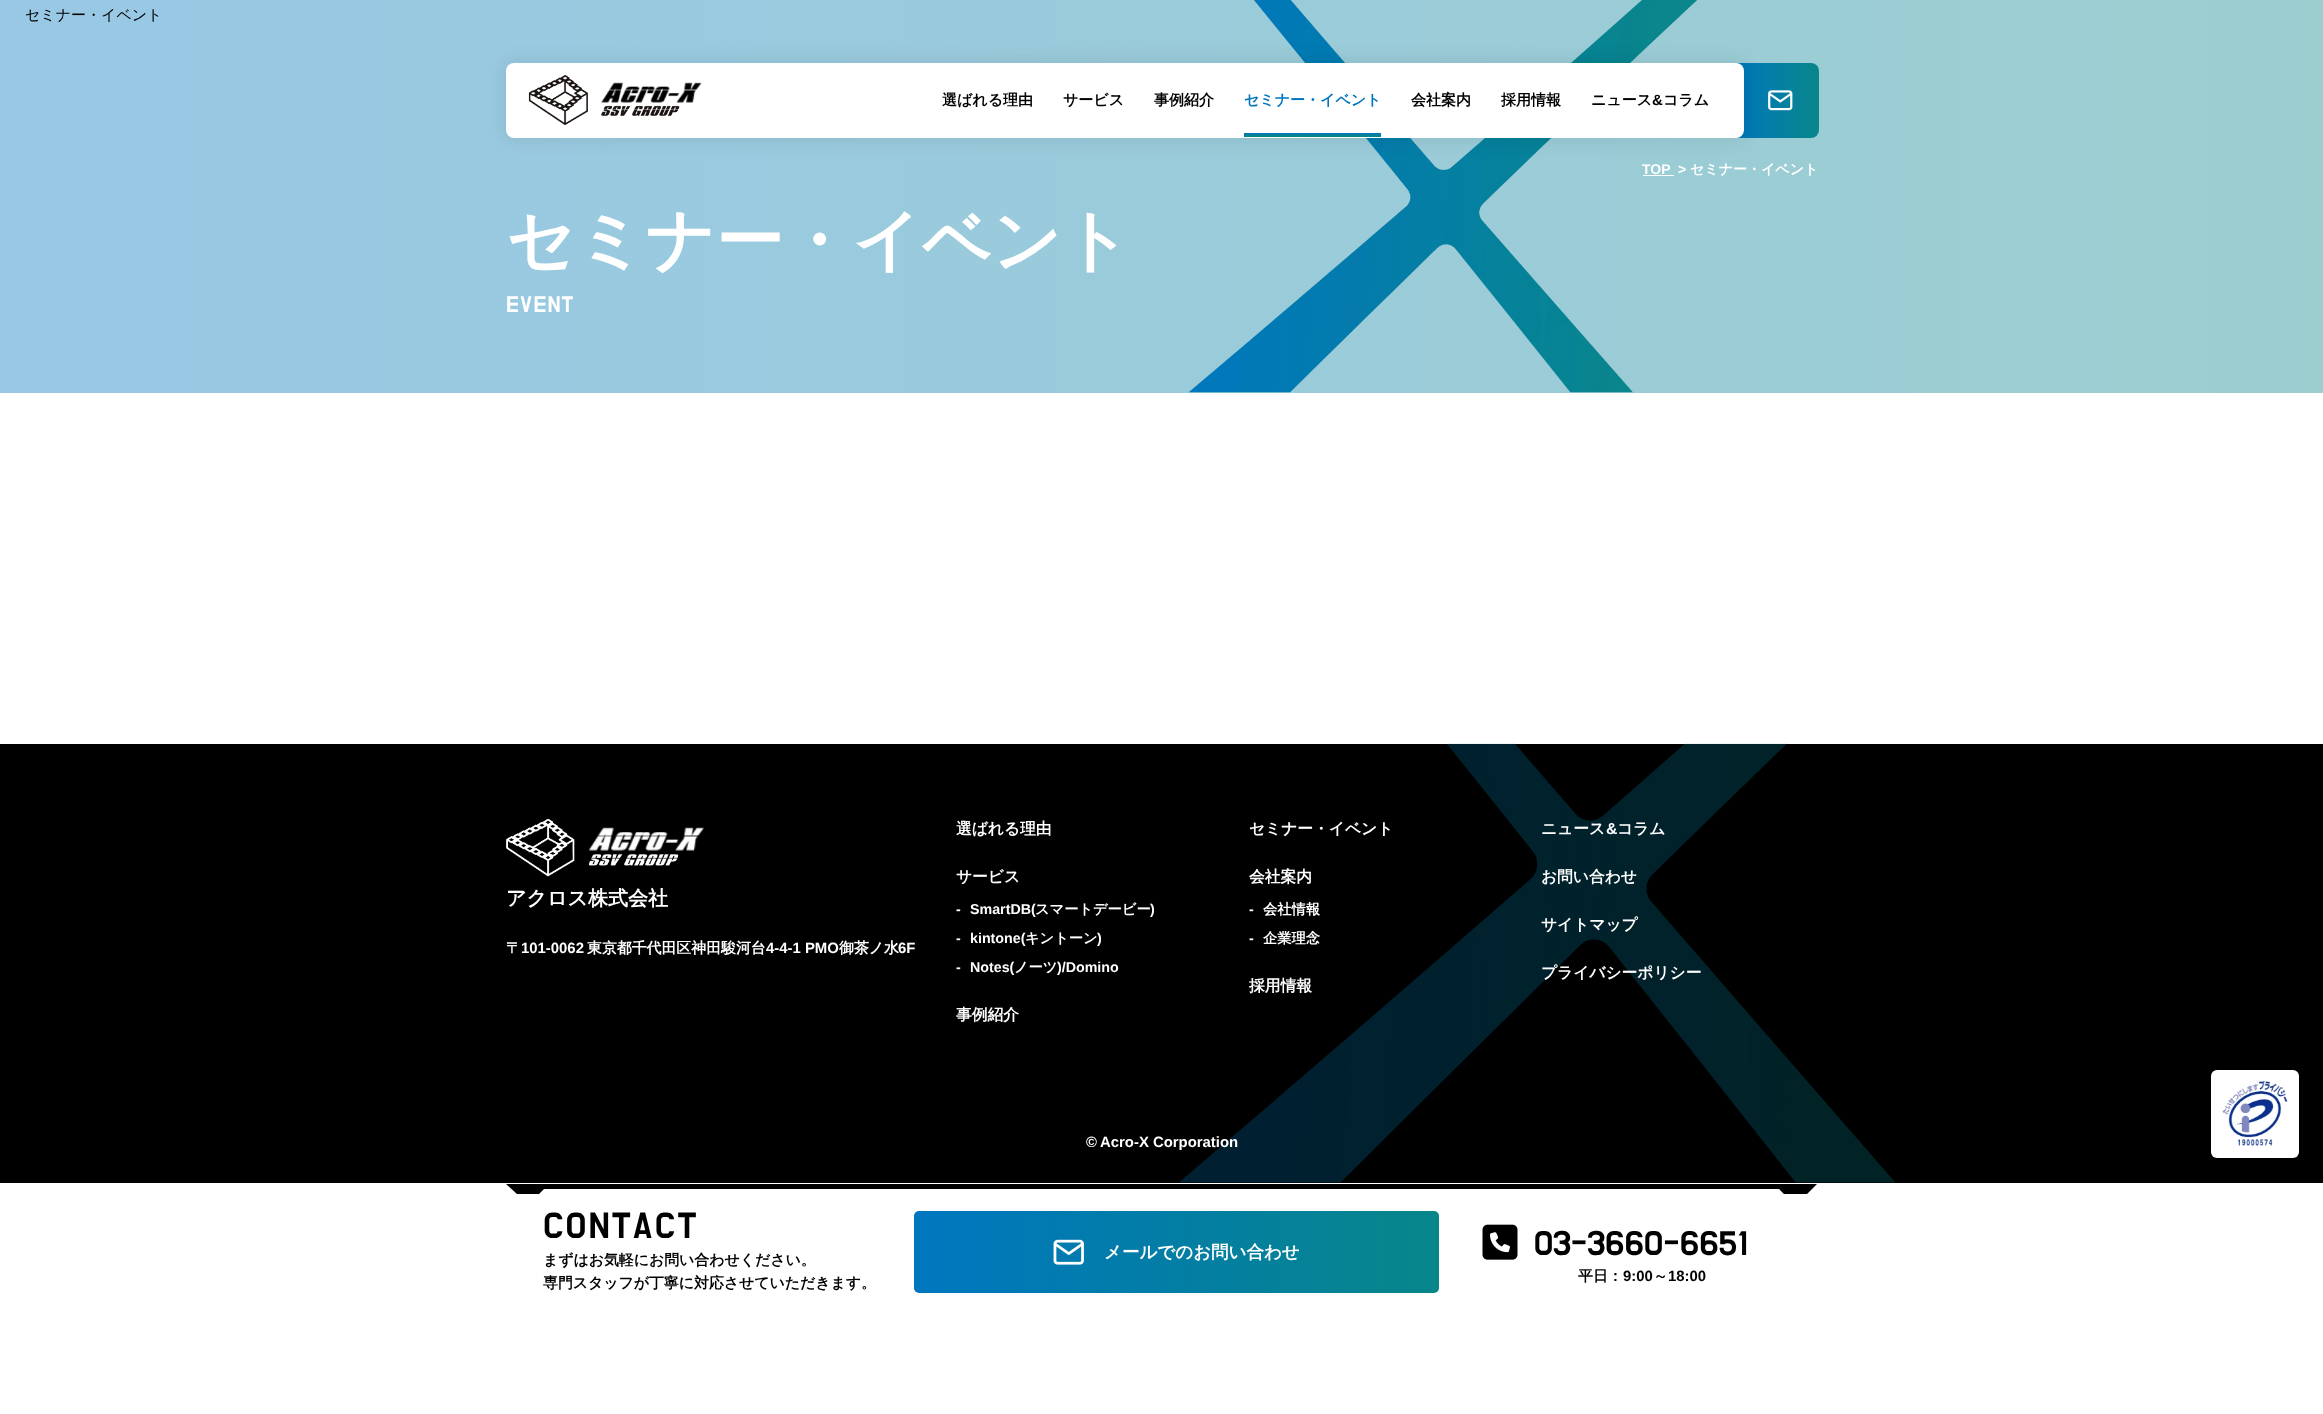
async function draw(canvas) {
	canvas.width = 2323;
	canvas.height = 1414;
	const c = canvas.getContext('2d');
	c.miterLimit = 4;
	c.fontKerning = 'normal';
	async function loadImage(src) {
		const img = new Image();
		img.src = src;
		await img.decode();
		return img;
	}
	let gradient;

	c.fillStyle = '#fff';
	c.fillRect(0, 0, 2323, 1414);
	gradient = c.createLinearGradient(0, 196, 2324, 196);
	gradient.addColorStop(0, '#98c8e5');
	gradient.addColorStop(1, '#9cced0');
	c.fillStyle = gradient;
	c.fillRect(0, 0, 2323, 393);
	c.font = '500 15px WenQuanYi Zen Hei';
	c.fillStyle = '#000';
	c.fillText('セミナー・イベント', 25, 20);
	gradient = c.createLinearGradient(1731, 100, 1819, 100);
	gradient.addColorStop(0, '#0076bf');
	gradient.addColorStop(1, '#09868b');
	c.fillStyle = gradient;
	c.beginPath();
	c.roundRect(1731, 63, 88, 75, 8);
	c.fill();
	c.drawImage(await loadImage('img2.png'), 1768, 90, 25, 21);
	c.drawImage(await loadImage('img3.png'), 1188, 0, 509, 393);
	c.fillStyle = '#0000001a';
	c.filter = 'blur(9.5px)';
	c.beginPath();
	c.roundRect(506, 63, 1238, 75, 8);
	c.fill();
	c.filter = 'none';
	c.fillStyle = '#fff';
	c.beginPath();
	c.roundRect(506, 63, 1238, 75, 8);
	c.fill();
	c.drawImage(await loadImage('img1.png'), 528, 75, 174, 50);
	c.font = 'bold 15px WenQuanYi Zen Hei';
	c.fillStyle = '#000';
	for (const [text, x, y] of [
		['選ばれる理由', 942, 105],
		['サービス', 1063, 105],
		['事例紹介', 1154, 105],
	]) {
		c.fillText(text, x, y);
	}
	c.fillStyle = '#0076bf';
	c.fillText('セミナー・イベント', 1244, 105);
	gradient = c.createLinearGradient(1313, 133, 1313, 136);
	gradient.addColorStop(0, '#0076bf');
	gradient.addColorStop(1, '#07868a');
	c.fillStyle = gradient;
	c.fillRect(1244, 133, 137, 4);
	c.fillStyle = '#000';
	for (const [text, x, y] of [
		['会社案内', 1411, 105],
		['採用情報', 1501, 105],
		['ニュース', 1591, 105],
	]) {
		c.fillText(text, x, y);
	}
	c.font = 'bold 15px Liberation Sans';
	c.fillText('&', 1652, 105);
	c.font = 'bold 15px WenQuanYi Zen Hei';
	c.fillText('コラム', 1663, 105);
	c.font = 'bold 14px Liberation Sans';
	c.fillStyle = '#fff';
	c.fillText('TOP', 1642, 174);
	c.fillRect(1643, 175, 31, 1);
	c.fillText('>', 1678, 174);
	c.font = 'bold 14px WenQuanYi Zen Hei';
	c.fillText('セミナー・イベント', 1690, 174);
	c.font = 'bold 68.25px WenQuanYi Zen Hei';
	c.fillText('セミナー・イベント', 506, 264);
	c.letterSpacing = '1px';
	c.font = '23px Do Hyeon';
	c.fillText('EVENT', 506, 312);
	c.fillStyle = '#000';
	c.fillRect(0, 744, 2323, 439);
	c.drawImage(await loadImage('img4.png'), 1179, 743, 716, 440);
	c.drawImage(await loadImage('img5.png'), 506, 818, 198, 59);
	c.letterSpacing = '0px';
	c.font = 'bold 20px WenQuanYi Zen Hei';
	c.fillStyle = '#fff';
	c.fillText('アクロス株式会社', 506, 905);
	c.font = 'bold 14.9px WenQuanYi Zen Hei';
	c.fillText('〒', 506, 953);
	c.font = 'bold 14.9px Liberation Sans';
	c.fillText('101-0062', 521, 953);
	c.font = 'bold 14.9px WenQuanYi Zen Hei';
	c.fillText('東京都千代田区神田駿河台', 587, 953);
	c.font = 'bold 14.9px Liberation Sans';
	c.fillText('4-4-1 PMO', 766, 953);
	c.font = 'bold 14.9px WenQuanYi Zen Hei';
	c.fillText('御茶ノ水', 839, 953);
	c.font = 'bold 14.9px Liberation Sans';
	c.fillText('6F', 898, 953);
	c.font = 'bold 15.75px WenQuanYi Zen Hei';
	for (const [text, x, y] of [
		['選ばれる理由', 956, 834],
		['セミナー・イベント', 1249, 834],
		['ニュース', 1541, 834],
	]) {
		c.fillText(text, x, y);
	}
	c.font = 'bold 15.75px Liberation Sans';
	c.fillText('&', 1606, 834);
	c.font = 'bold 15.75px WenQuanYi Zen Hei';
	c.fillText('コラム', 1617, 834);
	c.fillText('サービス', 956, 882);
	c.font = 'bold 14.25px Liberation Sans';
	c.fillText('-', 956, 914);
	c.fillText('SmartDB(', 970, 914);
	c.font = 'bold 14.25px WenQuanYi Zen Hei';
	c.fillText('スマートデービー', 1035, 914);
	c.font = 'bold 14.25px Liberation Sans';
	for (const [text, x, y] of [
		[')', 1150, 914],
		['-', 956, 943],
		['kintone(', 970, 943],
	]) {
		c.fillText(text, x, y);
	}
	c.font = 'bold 14.25px WenQuanYi Zen Hei';
	c.fillText('キントーン', 1025, 943);
	c.font = 'bold 14.25px Liberation Sans';
	for (const [text, x, y] of [
		[')', 1097, 943],
		['-', 956, 972],
		['Notes(', 970, 972],
	]) {
		c.fillText(text, x, y);
	}
	c.font = 'bold 14.25px WenQuanYi Zen Hei';
	c.fillText('ノーツ', 1014, 972);
	c.font = 'bold 14.25px Liberation Sans';
	c.fillText(')/Domino', 1057, 972);
	c.font = 'bold 15.75px WenQuanYi Zen Hei';
	c.fillText('会社案内', 1249, 882);
	c.font = 'bold 14.25px Liberation Sans';
	c.fillText('-', 1249, 914);
	c.font = 'bold 14.25px WenQuanYi Zen Hei';
	c.fillText('会社情報', 1263, 914);
	c.font = 'bold 14.25px Liberation Sans';
	c.fillText('-', 1249, 943);
	c.font = 'bold 14.25px WenQuanYi Zen Hei';
	c.fillText('企業理念', 1263, 943);
	c.font = 'bold 15.75px WenQuanYi Zen Hei';
	for (const [text, x, y] of [
		['お問い合わせ', 1541, 882],
		['サイトマップ', 1541, 930],
		['プライバシーポリシー', 1541, 978],
		['採用情報', 1249, 991],
		['事例紹介', 956, 1020],
	]) {
		c.fillText(text, x, y);
	}
	c.font = 'bold 14.9px Liberation Sans';
	c.fillText('©︎', 1086, 1147);
	c.fillText('Acro-X Corporation', 1100, 1147);
	c.beginPath();
	c.roundRect(2211, 1070, 88, 88, 6);
	c.fill();
	c.drawImage(await loadImage('img6.png'), 2222, 1080, 66, 66);
	c.fillStyle = '#000';
	c.beginPath();
	c.moveTo(1817, 1184);
	c.lineTo(1807, 1194);
	c.lineTo(1784, 1194);
	c.lineTo(1779, 1189);
	c.lineTo(544, 1189);
	c.lineTo(539, 1194);
	c.lineTo(517, 1194);
	c.lineTo(506, 1184);
	c.closePath();
	c.fill();
	c.letterSpacing = '2px';
	c.font = '37.5px Do Hyeon';
	c.fillText('CONTACT', 543, 1238);
	c.letterSpacing = '0px';
	c.font = 'bold 14.9px WenQuanYi Zen Hei';
	c.fillText('まずはお気軽にお問い合わせください。', 543, 1265);
	c.fillText('専門スタッフが丁寧に対応させていただきます。', 543, 1288);
	gradient = c.createLinearGradient(914, 1252, 1964, 1252);
	gradient.addColorStop(0, '#0076bf');
	gradient.addColorStop(0.5, '#07868a');
	gradient.addColorStop(1, '#0076bf');
	c.fillStyle = gradient;
	c.beginPath();
	c.roundRect(914, 1211, 525, 82, 5);
	c.fill();
	c.drawImage(await loadImage('img7.png'), 1053, 1239, 31, 26);
	c.font = 'bold 17.5px WenQuanYi Zen Hei';
	c.fillStyle = '#fff';
	c.fillText('メールでのお問い合わせ', 1104, 1258);
	c.drawImage(await loadImage('img8.png'), 1482, 1224, 36, 36);
	c.font = '35px Do Hyeon';
	c.fillStyle = '#000';
	c.fillText('03-3660-6651', 1534, 1255);
	c.font = 'bold 14.9px WenQuanYi Zen Hei';
	c.fillText('平日：', 1578, 1281);
	c.font = 'bold 14.9px Liberation Sans';
	c.fillText('9:00', 1623, 1281);
	c.font = 'bold 14.9px WenQuanYi Zen Hei';
	c.fillText('～', 1653, 1281);
	c.font = 'bold 14.9px Liberation Sans';
	c.fillText('18:00', 1668, 1281);
}

draw(document.querySelector('canvas'));
